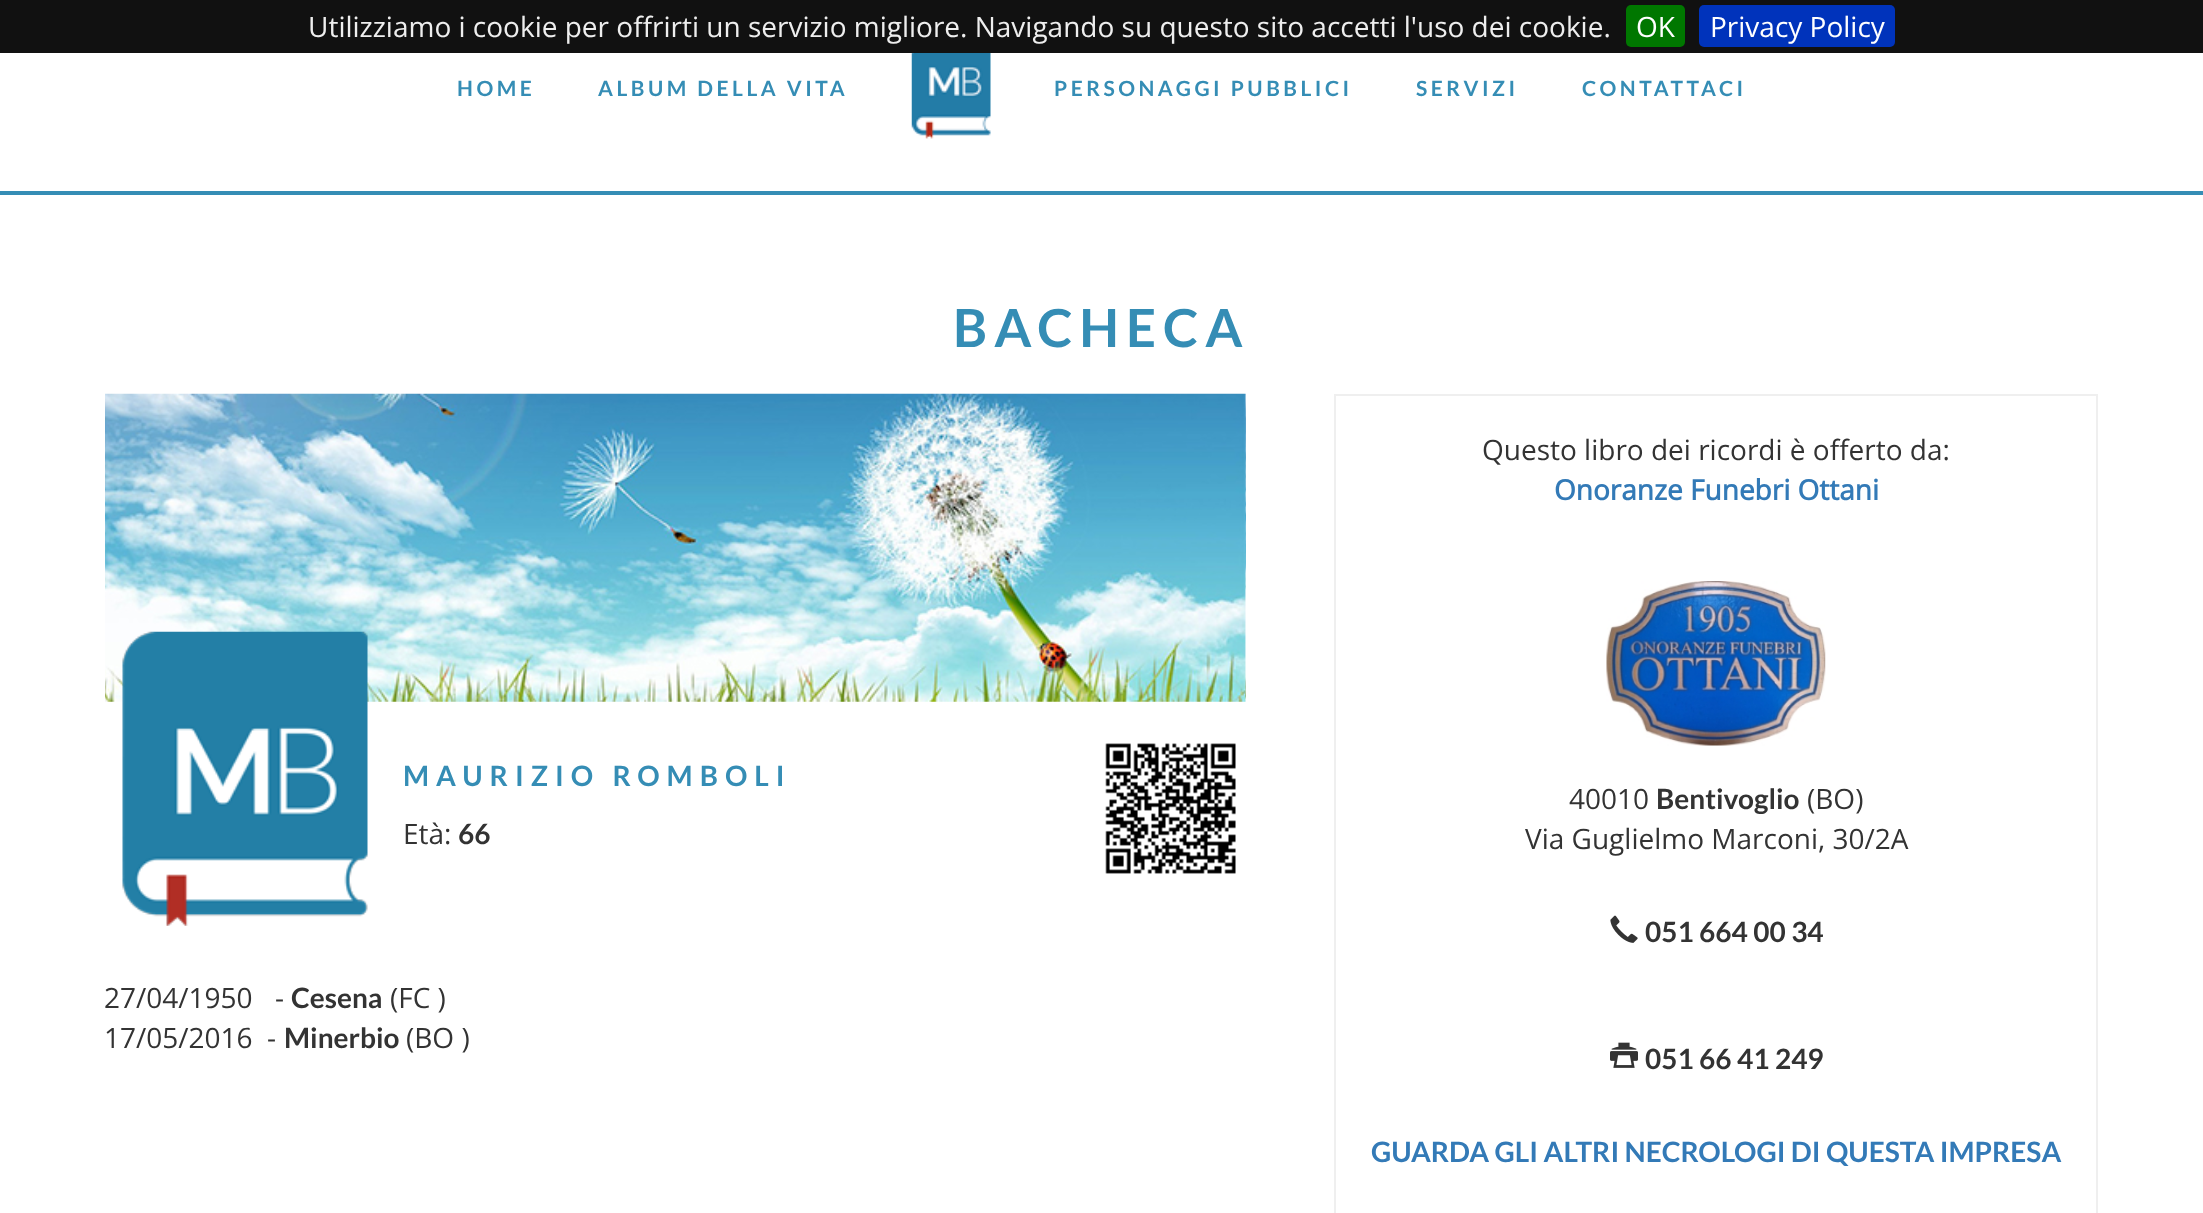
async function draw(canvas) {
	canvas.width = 2203;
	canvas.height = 1213;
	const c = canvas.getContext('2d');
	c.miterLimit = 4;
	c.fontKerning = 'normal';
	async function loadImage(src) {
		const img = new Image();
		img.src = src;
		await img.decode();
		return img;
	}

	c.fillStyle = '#fff';
	c.fillRect(0, 0, 2203, 1213);
	c.fillStyle = '#111';
	c.fillRect(0, 0, 2203, 53);
	c.font = '28px Open Sans';
	c.fillStyle = '#eee';
	c.fillText('Utilizziamo i cookie per offrirti un servizio migliore. Navigando su questo sito accetti l\'uso dei cookie.', 308, 37);
	c.fillStyle = '#070';
	c.beginPath();
	c.roundRect(1626, 5, 59, 42, 5);
	c.fill();
	c.fillStyle = '#fff';
	c.fillText('OK', 1636, 37);
	c.fillStyle = '#03b';
	c.beginPath();
	c.roundRect(1699, 5, 196, 42, 5);
	c.fill();
	c.fillStyle = '#fff';
	c.fillText('Privacy Policy', 1710, 37);
	c.fillStyle = '#358db5';
	c.fillRect(0, 191, 2203, 4);
	c.letterSpacing = '3.5px';
	c.font = 'bold 21px Lato';
	c.fillText('HOME', 457, 96);
	c.fillText('ALBUM DELLA VITA', 598, 96);
	c.drawImage(await loadImage('img1.png'), 911, 53, 80, 86);
	for (const [text, x, y] of [
		['PERSONAGGI PUBBLICI', 1054, 96],
		['SERVIZI', 1416, 96],
		['CONTATTACI', 1582, 96],
	]) {
		c.fillText(text, x, y);
	}
	c.letterSpacing = '7px';
	c.font = 'bold 52.5px Lato';
	c.fillText('BACHECA', 953, 347);
	c.drawImage(await loadImage('img2.png'), 105, 393, 1141, 309);
	c.drawImage(await loadImage('img3.png'), 122, 631, 246, 295);
	c.font = 'bold 28px Lato';
	c.fillText('MAURIZIO ROMBOLI', 403, 786);
	c.letterSpacing = '0px';
	c.font = '28px Open Sans';
	c.fillStyle = '#333';
	c.fillText('Età:', 403, 844);
	c.font = 'bold 28px Lato';
	c.fillText('66', 458, 844);
	c.drawImage(await loadImage('img4.png'), 1105, 743, 131, 131);
	c.font = '28px Open Sans';
	c.fillText('27/04/1950', 104, 1008);
	c.fillText('-', 275, 1008);
	c.font = 'bold 28px Lato';
	c.fillText('Cesena', 291, 1008);
	c.font = '28px Open Sans';
	for (const [text, x, y] of [
		['(FC )', 390, 1008],
		['17/05/2016', 104, 1048],
		['-', 267, 1048],
	]) {
		c.fillText(text, x, y);
	}
	c.font = 'bold 28px Lato';
	c.fillText('Minerbio', 284, 1048);
	c.font = '28px Open Sans';
	c.fillText('(BO )', 406, 1048);
	c.strokeStyle = '#efefef';
	c.lineWidth = 2;
	c.strokeRect(1335, 395, 762, 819);
	c.fillText('Questo libro dei ricordi è offerto da:', 1482, 460);
	c.font = 'bold 28px Open Sans';
	c.fillStyle = '#337ab7';
	c.fillText('Onoranze Funebri Ottani', 1554, 500);
	c.drawImage(await loadImage('img5.png'), 1606, 581, 220, 165);
	c.font = '28px Open Sans';
	c.fillStyle = '#333';
	c.fillText('40010', 1569, 809);
	c.font = 'bold 28px Lato';
	c.fillText('Bentivoglio', 1656, 809);
	c.font = '28px Open Sans';
	c.fillText('(BO)', 1807, 809);
	c.fillText('Via Guglielmo Marconi, 30/2A', 1525, 849);
	c.drawImage(await loadImage('img6.png'), 1610, 915, 28, 28);
	c.font = 'bold 28px Lato';
	c.fillText('051 664 00 34', 1645, 942);
	c.drawImage(await loadImage('img7.png'), 1610, 1042, 28, 26);
	c.fillText('051 66 41 249', 1645, 1069);
	c.fillStyle = '#337ab7';
	c.fillText('GUARDA GLI ALTRI NECROLOGI DI QUESTA IMPRESA', 1371, 1162);
}

draw(document.querySelector('canvas'));
